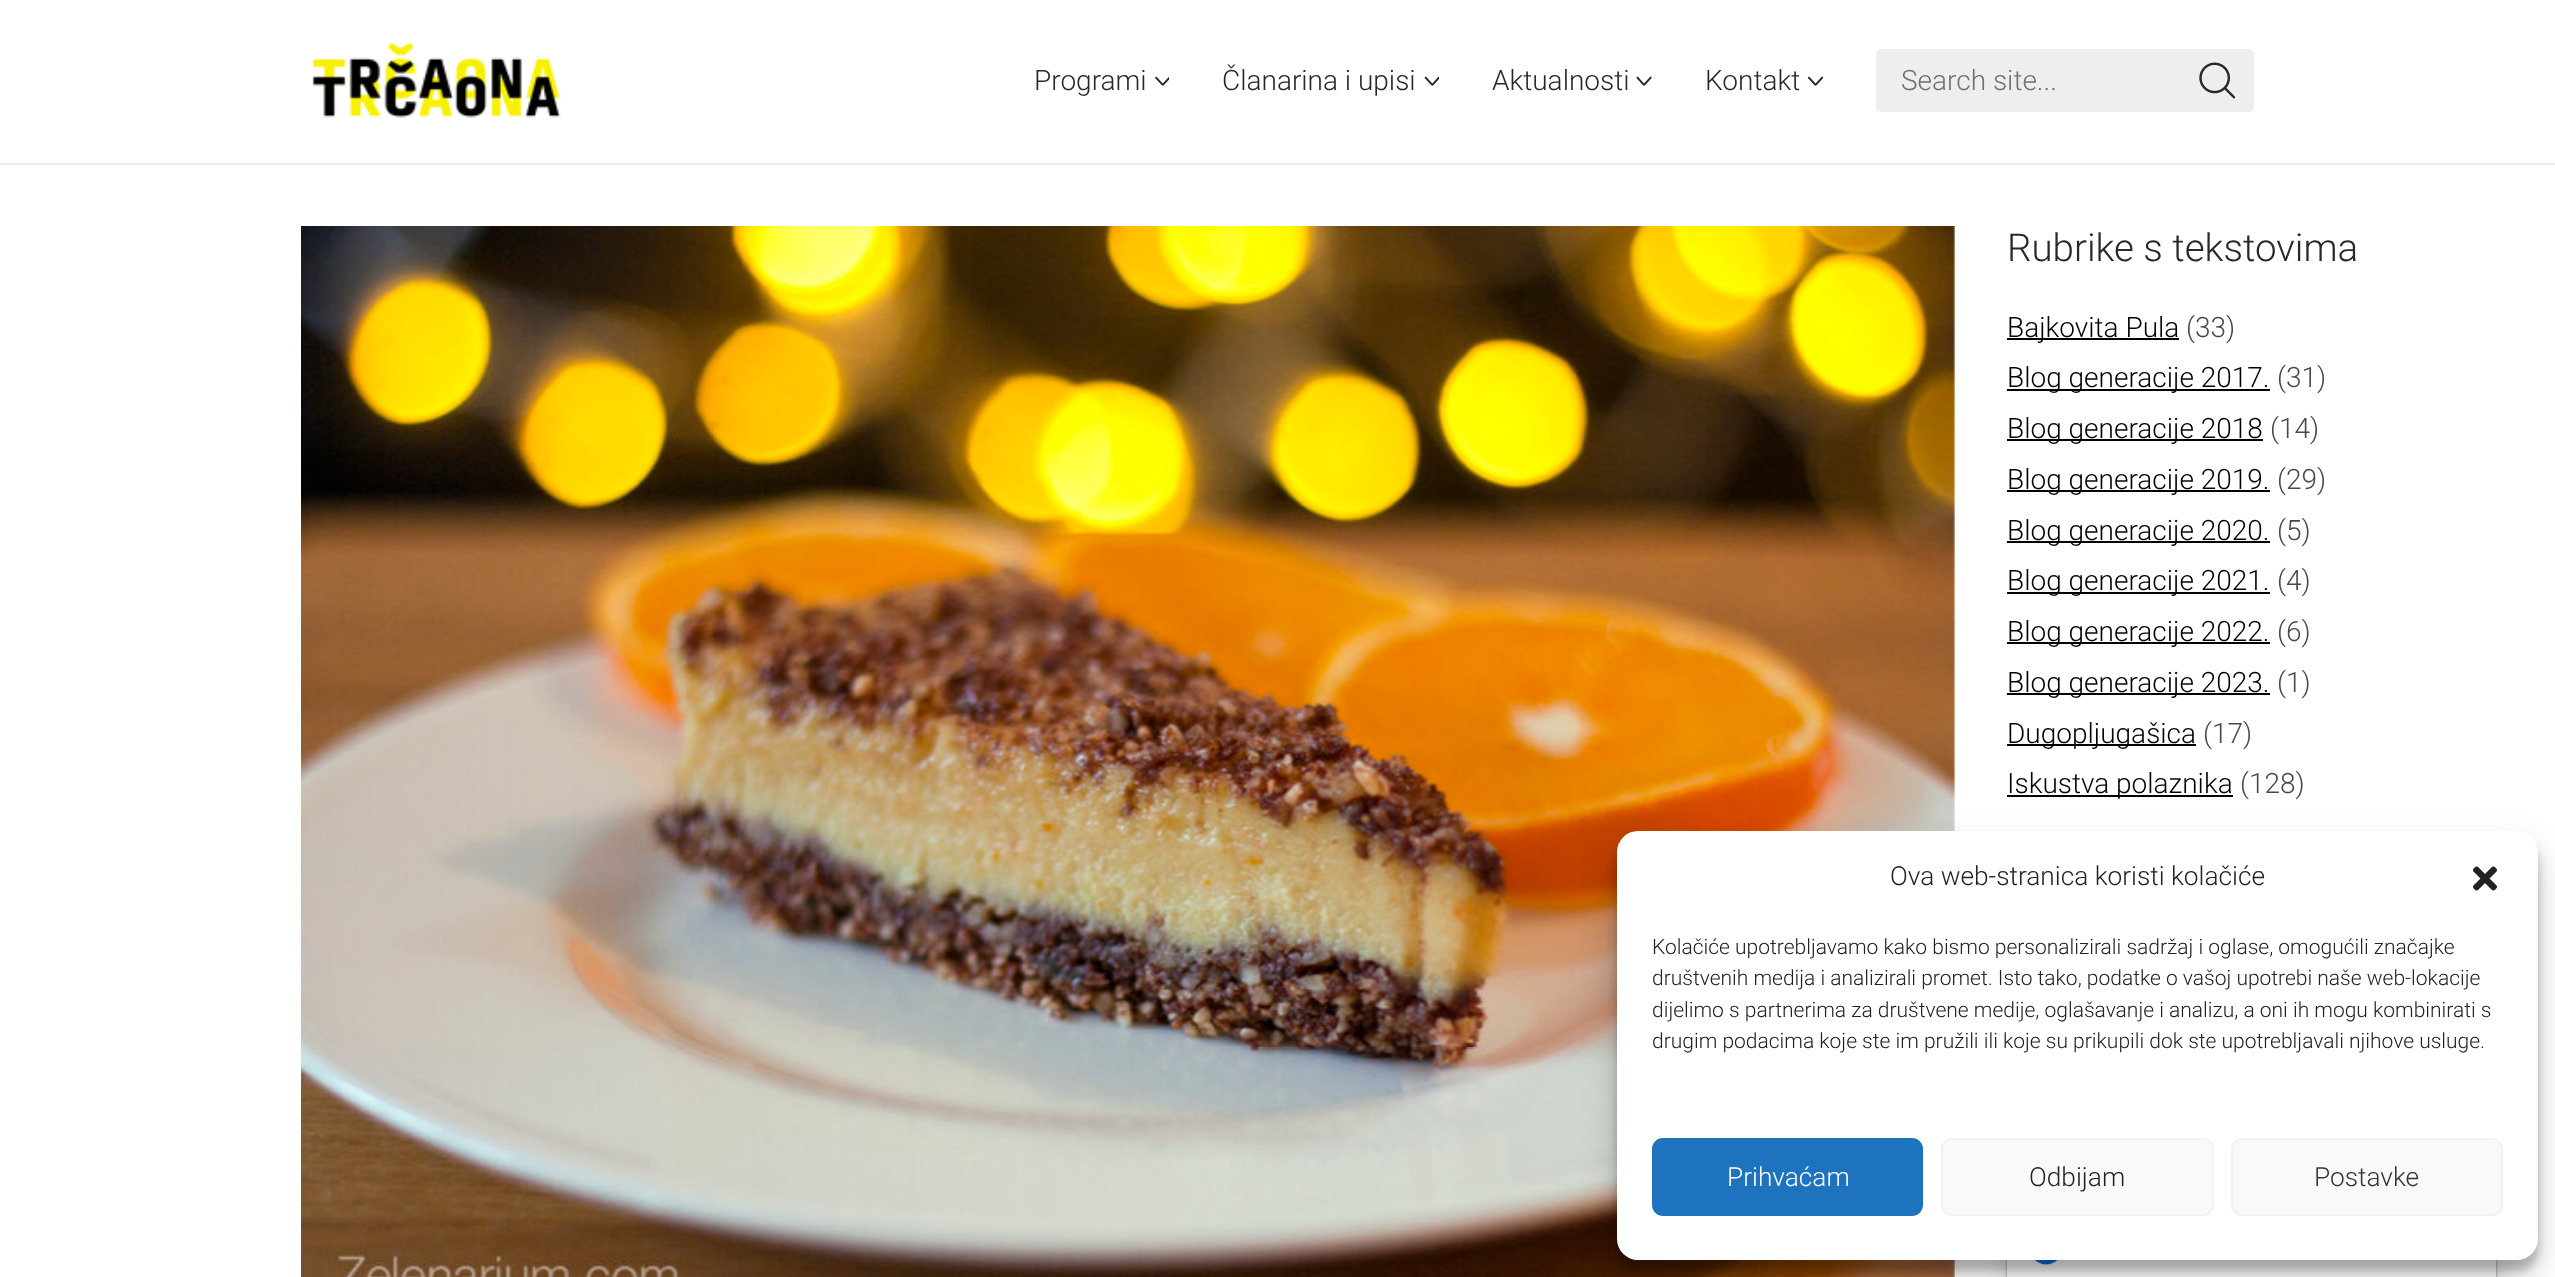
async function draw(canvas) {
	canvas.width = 2555;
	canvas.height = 1277;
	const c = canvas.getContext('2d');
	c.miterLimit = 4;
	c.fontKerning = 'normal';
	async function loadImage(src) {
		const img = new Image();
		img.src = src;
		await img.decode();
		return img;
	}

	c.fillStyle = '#fff';
	c.fillRect(0, 0, 2555, 1277);
	c.fillStyle = '#ededed';
	c.fillRect(0, 163, 2555, 2);
	c.drawImage(await loadImage('img1.png'), 312, 41, 249, 77);
	c.font = '300 28px Roboto';
	c.fillStyle = '#282828';
	c.fillText('Programi', 1034, 90);
	c.drawImage(await loadImage('img2.png'), 1155, 76, 14, 10);
	c.fillText('Članarina i upisi', 1222, 90);
	c.drawImage(await loadImage('img3.png'), 1424, 76, 15, 10);
	c.fillText('Aktualnosti', 1492, 90);
	c.drawImage(await loadImage('img4.png'), 1636, 76, 16, 10);
	c.fillText('Kontakt', 1705, 90);
	c.drawImage(await loadImage('img5.png'), 1807, 76, 17, 10);
	c.fillStyle = '#eee';
	c.beginPath();
	c.roundRect(1876, 49, 378, 63, 5);
	c.fill();
	c.fillStyle = '#717171';
	c.fillText('Search site...', 1901, 90);
	c.drawImage(await loadImage('img6.png'), 2199, 62, 37, 37);
	c.drawImage(await loadImage('img7.png'), 301, 226, 1654, 1051);
	c.font = '300 38.5px Roboto';
	c.fillStyle = '#282828';
	c.fillText('Rubrike s tekstovima', 2007, 261);
	c.fillStyle = '#000';
	c.fillRect(2007, 338, 172, 2);
	c.font = '300 28px Roboto';
	c.fillText('Bajkovita Pula', 2007, 337);
	c.fillStyle = '#494949';
	c.fillText('(33)', 2186, 337);
	c.fillStyle = '#000';
	c.fillRect(2007, 389, 263, 2);
	c.fillText('Blog generacije 2017.', 2007, 387);
	c.fillStyle = '#494949';
	c.fillText('(31)', 2277, 387);
	c.fillStyle = '#000';
	c.fillRect(2007, 439, 256, 2);
	c.fillText('Blog generacije 2018', 2007, 438);
	c.fillStyle = '#494949';
	c.fillText('(14)', 2270, 438);
	c.fillStyle = '#000';
	c.fillRect(2007, 490, 263, 2);
	c.fillText('Blog generacije 2019.', 2007, 489);
	c.fillStyle = '#494949';
	c.fillText('(29)', 2277, 489);
	c.fillStyle = '#000';
	c.fillRect(2007, 541, 263, 2);
	c.fillText('Blog generacije 2020.', 2007, 540);
	c.fillStyle = '#494949';
	c.fillText('(5)', 2277, 540);
	c.fillStyle = '#000';
	c.fillRect(2007, 592, 263, 2);
	c.fillText('Blog generacije 2021.', 2007, 590);
	c.fillStyle = '#494949';
	c.fillText('(4)', 2277, 590);
	c.fillStyle = '#000';
	c.fillRect(2007, 642, 263, 2);
	c.fillText('Blog generacije 2022.', 2007, 641);
	c.fillStyle = '#494949';
	c.fillText('(6)', 2277, 641);
	c.fillStyle = '#000';
	c.fillRect(2007, 693, 263, 2);
	c.fillText('Blog generacije 2023.', 2007, 692);
	c.fillStyle = '#494949';
	c.fillText('(1)', 2277, 692);
	c.fillStyle = '#000';
	c.fillRect(2007, 744, 189, 2);
	c.fillText('Dugopljugašica', 2007, 743);
	c.fillStyle = '#494949';
	c.fillText('(17)', 2203, 743);
	c.fillStyle = '#000';
	c.fillRect(2007, 795, 226, 2);
	c.fillText('Iskustva polaznika', 2007, 793);
	c.fillStyle = '#494949';
	c.fillText('(128)', 2240, 793);
	c.fillStyle = '#00000026';
	c.filter = 'blur(9px)';
	c.beginPath();
	c.roundRect(2007, 1215, 489, 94, 5);
	c.fill();
	c.filter = 'none';
	c.fillStyle = '#00000080';
	c.filter = 'blur(1px)';
	c.beginPath();
	c.roundRect(2007, 1213, 489, 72, 5);
	c.fill();
	c.filter = 'none';
	c.fillStyle = '#fff';
	c.fillRect(2007, 1260, 489, 17);
	c.drawImage(await loadImage('img8.png'), 2007, 1260, 484, 8);
	c.fillStyle = '#0000003b';
	c.filter = 'blur(5px)';
	c.beginPath();
	c.roundRect(1617, 842, 921, 429, 21);
	c.fill();
	c.filter = 'none';
	c.fillStyle = '#00000030';
	c.filter = 'blur(17.5px)';
	c.beginPath();
	c.roundRect(1617, 849, 921, 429, 21);
	c.fill();
	c.filter = 'none';
	c.fillStyle = '#fff';
	c.beginPath();
	c.roundRect(1617, 831, 921, 429, 21);
	c.fill();
	c.font = '300 26.25px Roboto';
	c.fillStyle = '#222';
	c.fillText('Ova web-stranica koristi kolačiće', 1890, 885);
	c.drawImage(await loadImage('img9.png'), 2473, 866, 24, 25);
	c.font = '300 21px Roboto';
	for (const [text, x, y] of [
		['Kolačiće upotrebljavamo kako bismo personalizirali sadržaj i oglase, omogućili značajke', 1652, 954],
		['društvenih medija i analizirali promet. Isto tako, podatke o vašoj upotrebi naše web-lokacije', 1652, 985],
		['dijelimo s partnerima za društvene medije, oglašavanje i analizu, a oni ih mogu kombinirati s', 1652, 1017],
		['drugim podacima koje ste im pružili ili koje su prikupili dok ste upotrebljavali njihove usluge.', 1652, 1048],
	]) {
		c.fillText(text, x, y);
	}
	c.fillStyle = '#1e73be';
	c.beginPath();
	c.roundRect(1653, 1139, 269, 76, 10);
	c.fill();
	c.strokeStyle = '#1e73be';
	c.lineWidth = 2;
	c.stroke();
	c.font = '300 26.25px Roboto';
	c.fillStyle = '#fff';
	c.fillText('Prihvaćam', 1727, 1186);
	c.fillStyle = '#f9f9f9';
	c.beginPath();
	c.roundRect(1942, 1139, 271, 76, 10);
	c.fill();
	c.strokeStyle = '#f2f2f2';
	c.stroke();
	c.fillStyle = '#222';
	c.fillText('Odbijam', 2029, 1186);
	c.fillStyle = '#f9f9f9';
	c.beginPath();
	c.roundRect(2232, 1139, 270, 76, 10);
	c.fill();
	c.stroke();
	c.fillStyle = '#333';
	c.fillText('Postavke', 2314, 1186);
}

draw(document.querySelector('canvas'));
